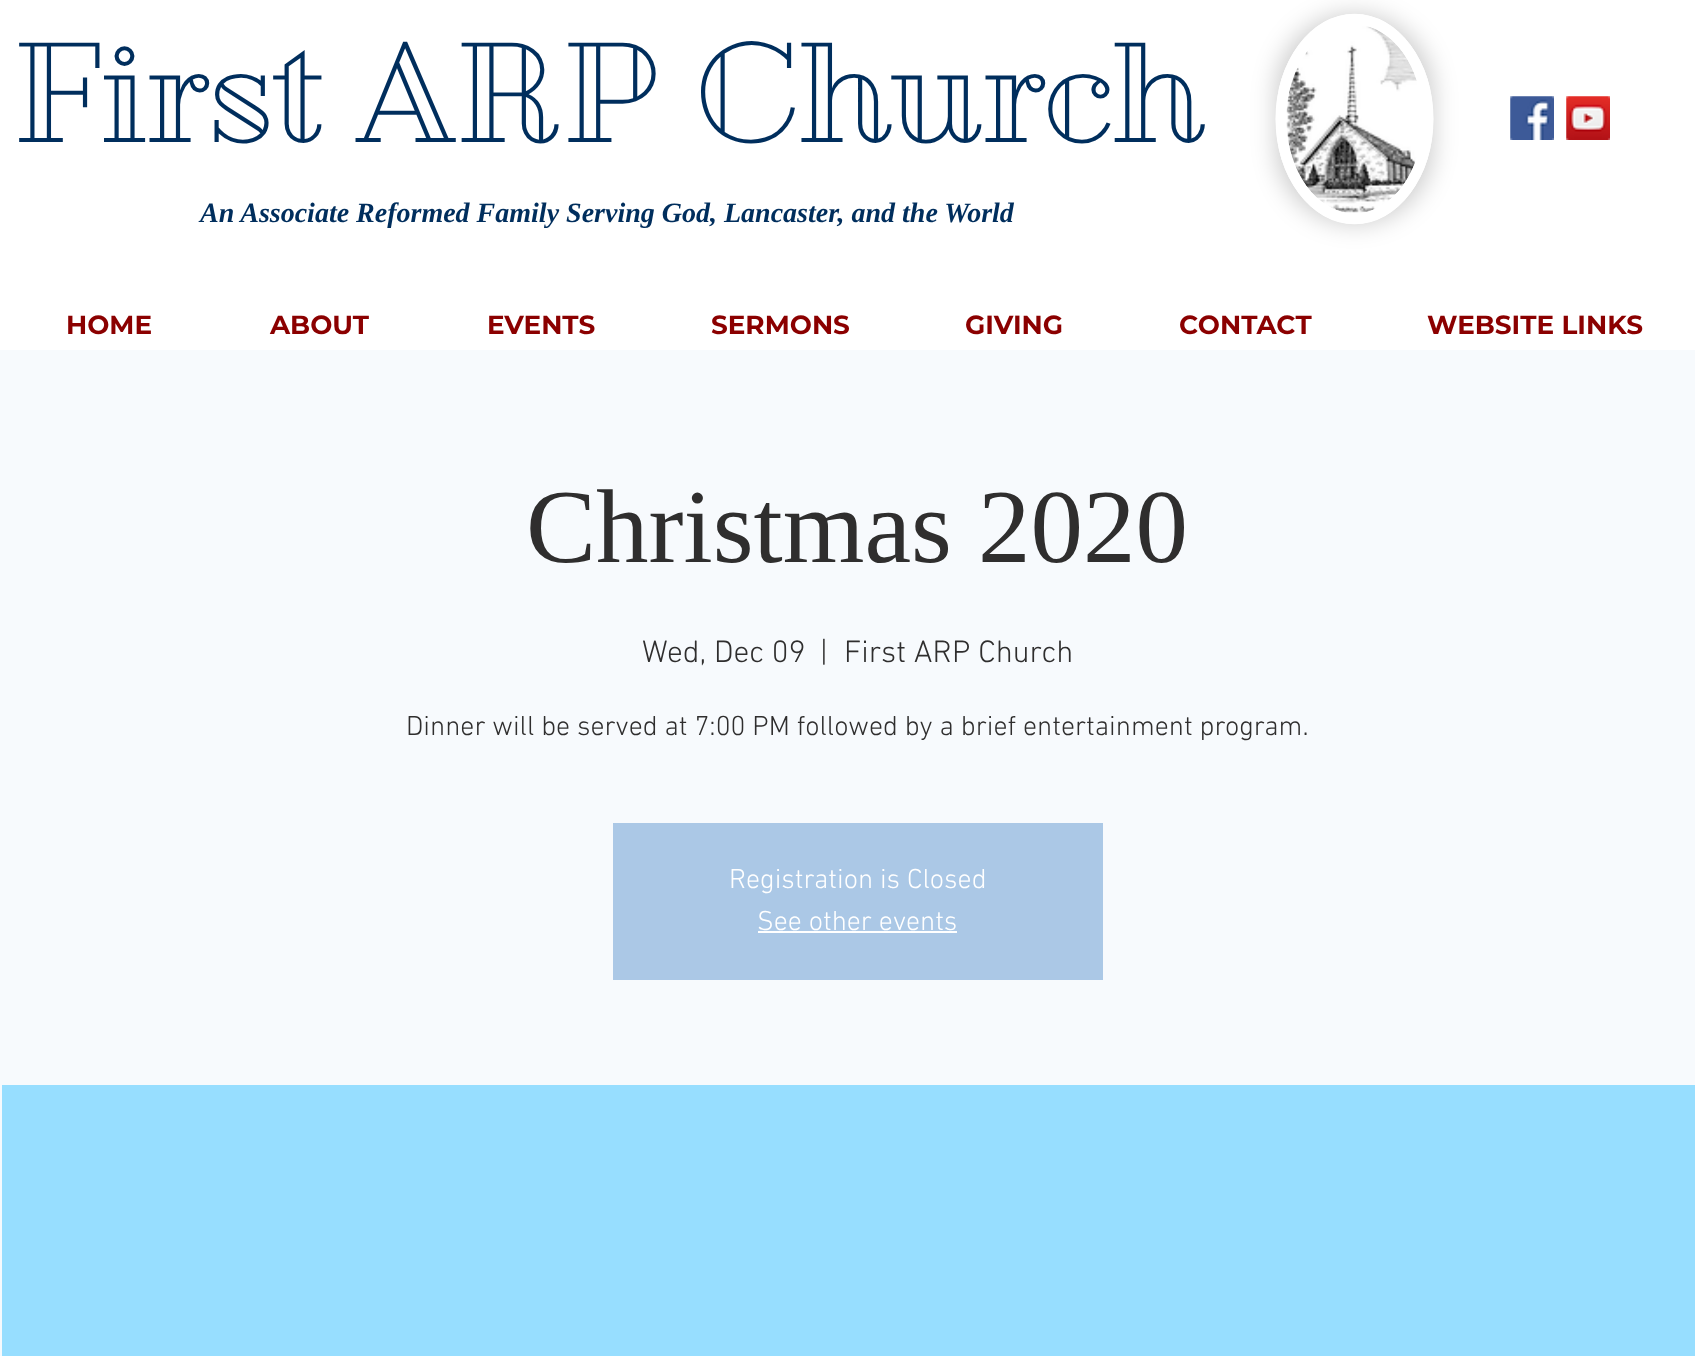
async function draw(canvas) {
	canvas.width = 1695;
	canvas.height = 1356;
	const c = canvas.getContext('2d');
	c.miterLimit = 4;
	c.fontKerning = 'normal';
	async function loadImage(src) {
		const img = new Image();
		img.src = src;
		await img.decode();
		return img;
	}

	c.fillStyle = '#fff';
	c.fillRect(0, 0, 1695, 1356);
	c.font = 'bold 131.25px "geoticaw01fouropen"';
	c.fillStyle = '#002e5d';
	c.fillText('First ARP Church', 11, 142);
	c.font = 'italic bold 28px Liberation Serif';
	c.fillText('An Associate Reformed Family Serving God, Lancaster, and the World', 200, 222);
	c.fillStyle = '#00000033';
	c.filter = 'blur(12px)';
	c.beginPath();
	c.roundRect(1276, 14, 157, 210, 78.5);
	c.fill();
	c.filter = 'none';
	c.fillStyle = '#fff';
	c.beginPath();
	c.ellipse(1354.5, 119, 79, 105, 0, 0, 2 * Math.PI);
	c.fill();
	c.beginPath();
	c.moveTo(1354.5, 19);
	c.bezierCurveTo(1395, 19, 1428, 64, 1428, 119);
	c.bezierCurveTo(1428, 174, 1395, 219, 1354.5, 219);
	c.bezierCurveTo(1314, 219, 1281, 174, 1281, 119);
	c.bezierCurveTo(1281, 64, 1314, 19, 1354.5, 19);
	c.closePath();
	c.strokeStyle = '#fff';
	c.lineWidth = 10.5;
	c.stroke();
	c.drawImage(await loadImage('img1.png'), 1286, 26, 131, 187);
	c.drawImage(await loadImage('img2.png'), 1510, 96, 44, 44);
	c.drawImage(await loadImage('img3.png'), 1566, 96, 44, 44);
	c.font = 'bold 26.25px Montserrat';
	c.fillStyle = '#8b0000';
	for (const [text, x, y] of [
		['HOME', 66, 334],
		['ABOUT', 270, 334],
		['EVENTS', 487, 334],
		['SERMONS', 711, 334],
		['GIVING', 965, 334],
		['CONTACT', 1179, 334],
		['WEBSITE LINKS', 1427, 334],
	]) {
		c.fillText(text, x, y);
	}
	c.fillStyle = '#f7fafd';
	c.fillRect(0, 350, 1695, 1006);
	c.font = '105px Liberation Serif';
	c.fillStyle = '#2f2e2e';
	c.fillText('Christmas 2020', 526, 562);
	c.font = '300 31.5px "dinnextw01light"';
	for (const [text, x, y] of [
		['Wed, Dec 09', 642, 662],
		['|', 820, 662],
		['First ARP Church', 844, 662],
	]) {
		c.fillText(text, x, y);
	}
	c.font = '300 28px "dinnextw01light"';
	c.fillText('Dinner will be served at 7:00 PM followed by a brief entertainment program.', 406, 735);
	c.fillStyle = '#abc8e6';
	c.fillRect(613, 823, 490, 157);
	c.fillStyle = '#fff';
	c.fillText('Registration is Closed', 729, 888);
	c.fillText('See other events', 757, 930);
	c.fillRect(758, 931, 199, 2);
	c.fillStyle = '#97deff';
	c.fillRect(2, 1085, 1693, 271);
}

draw(document.querySelector('canvas'));
